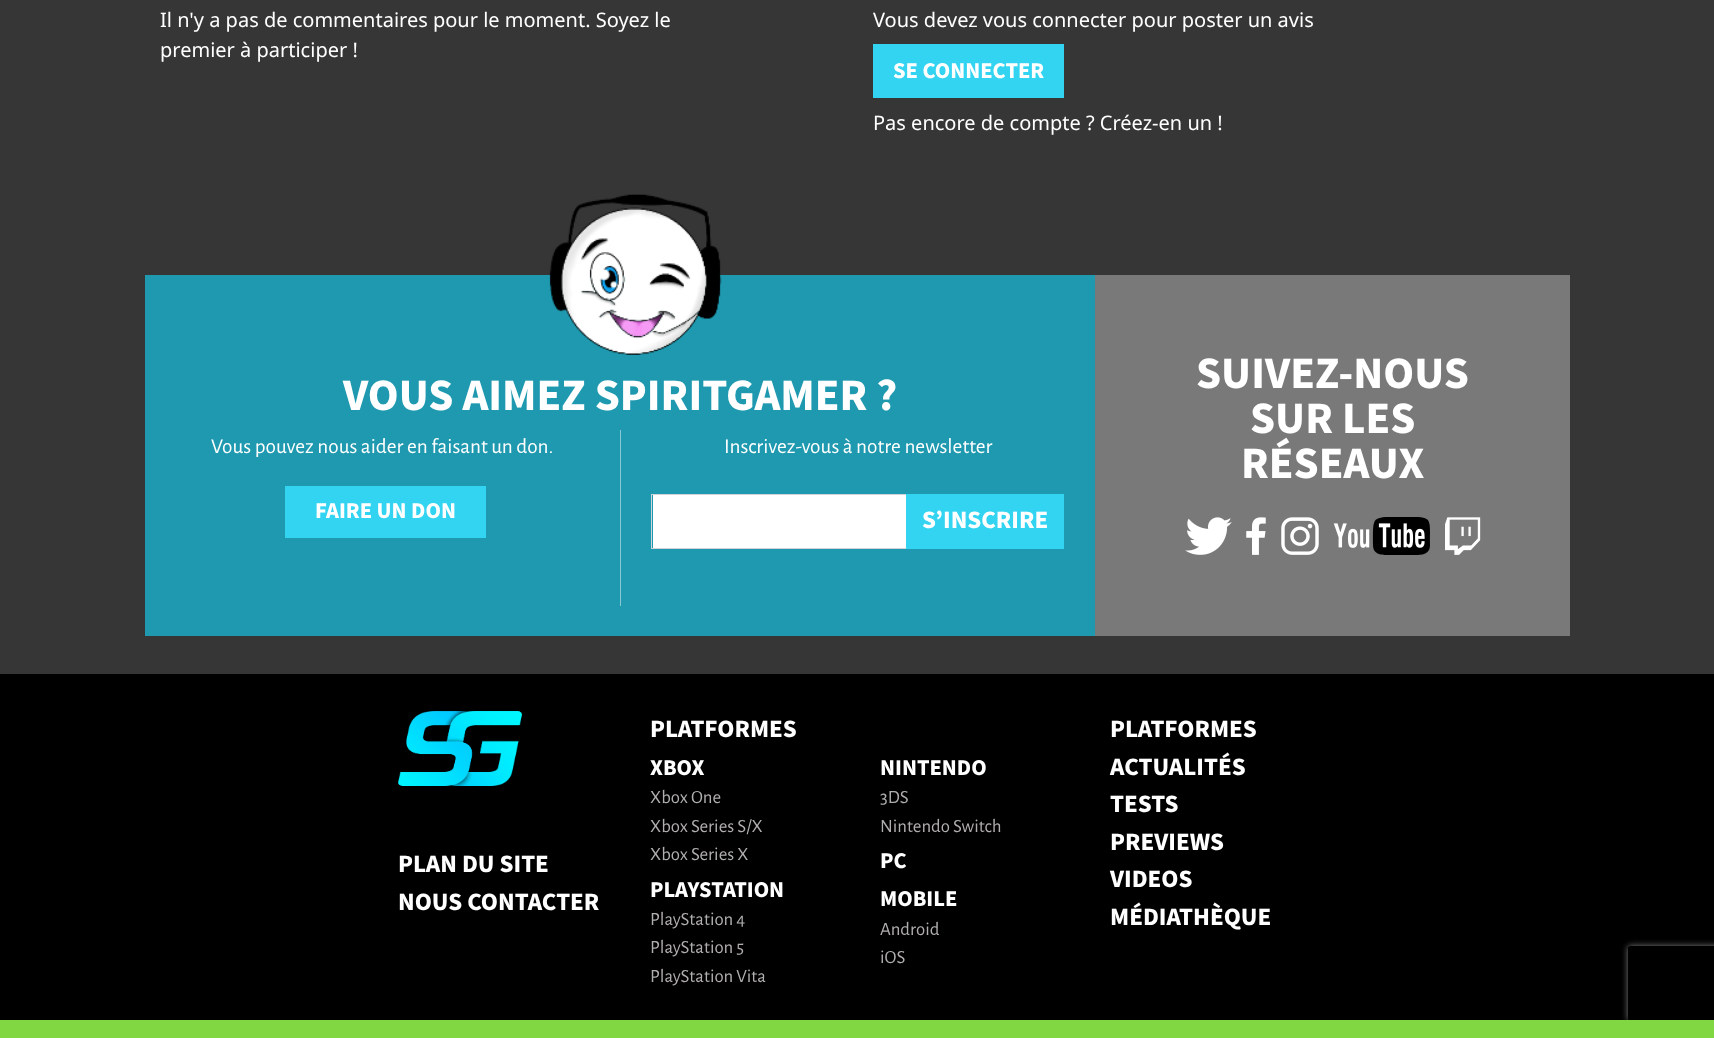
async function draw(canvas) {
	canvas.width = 1714;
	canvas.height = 1038;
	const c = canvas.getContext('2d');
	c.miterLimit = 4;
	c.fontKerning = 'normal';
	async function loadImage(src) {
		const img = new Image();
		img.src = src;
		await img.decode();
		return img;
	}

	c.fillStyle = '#363636';
	c.fillRect(0, 0, 1714, 1038);
	c.font = '20px Noto Sans';
	c.fillStyle = '#fff';
	for (const [text, x, y] of [
		['Il n\'y a pas de commentaires pour le moment. Soyez le', 160, 27],
		['premier à participer !', 160, 57],
		['Vous devez vous connecter pour poster un avis', 873, 27],
	]) {
		c.fillText(text, x, y);
	}
	c.fillStyle = '#32d4f1';
	c.fillRect(873, 44, 191, 54);
	c.font = 'bold 22.5px Source Sans Pro';
	c.fillStyle = '#fff';
	c.fillText('SE CONNECTER', 893, 78);
	c.font = '20px Noto Sans';
	c.fillText('Pas encore de compte ? Créez-en un !', 873, 130);
	c.fillStyle = '#797979';
	c.fillRect(1095, 275, 475, 361);
	c.fillStyle = '#1f99af';
	c.fillRect(145, 275, 950, 361);
	c.drawImage(await loadImage('img1.png'), 549, 194, 173, 161);
	c.font = 'bold 45px Source Sans Pro';
	c.fillStyle = '#fff';
	c.fillText('VOUS AIMEZ SPIRITGAMER ?', 343, 410);
	c.fillStyle = '#89c9d5';
	c.fillRect(620, 430, 1, 176);
	c.font = '21.25px Alegreya Sans';
	c.fillStyle = '#fff';
	c.fillText('Vous pouvez nous aider en faisant un don.', 211, 453);
	c.fillStyle = '#32d4f1';
	c.fillRect(285, 486, 201, 52);
	c.font = 'bold 22.5px Source Sans Pro';
	c.fillStyle = '#fff';
	c.fillText('FAIRE UN DON', 315, 518);
	c.font = '21.25px Alegreya Sans';
	c.fillText('Inscrivez-vous à notre newsletter', 724, 453);
	c.fillRect(653, 495, 253, 53);
	c.strokeStyle = '#ced4da';
	c.strokeRect(651.5, 494.5, 256, 54);
	c.fillStyle = '#32d4f1';
	c.fillRect(906, 494, 158, 55);
	c.font = 'bold 25px Source Sans Pro';
	c.fillStyle = '#fff';
	c.fillText('S’INSCRIRE', 922, 528);
	c.font = 'bold 45px Source Sans Pro';
	for (const [text, x, y] of [
		['SUIVEZ-NOUS', 1196, 388],
		['SUR LES', 1250, 433],
		['RÉSEAUX', 1241, 478],
	]) {
		c.fillText(text, x, y);
	}
	c.drawImage(await loadImage('img2.png'), 1185, 517, 47, 38);
	c.drawImage(await loadImage('img3.png'), 1246, 517, 20, 38);
	c.drawImage(await loadImage('img4.png'), 1281, 517, 38, 38);
	c.drawImage(await loadImage('img5.png'), 1333, 523, 37, 25);
	c.fillStyle = '#000';
	c.beginPath();
	c.moveTo(1430, 545);
	c.bezierCurveTo(1430, 555, 1421, 555, 1414, 555);
	c.lineTo(1389, 555);
	c.bezierCurveTo(1382, 555, 1373, 555, 1373, 545);
	c.bezierCurveTo(1373, 515, 1371, 517, 1402, 517);
	c.bezierCurveTo(1433, 517, 1430, 515, 1430, 545);
	c.closePath();
	c.fill();
	c.drawImage(await loadImage('img6.png'), 1378, 523, 47, 25);
	c.drawImage(await loadImage('img7.png'), 1445, 517, 36, 38);
	c.fillRect(0, 674, 1714, 346);
	c.drawImage(await loadImage('img8.png'), 398, 711, 125, 75);
	c.font = 'bold 25px Source Sans Pro';
	c.fillStyle = '#fff';
	for (const [text, x, y] of [
		['PLAN DU SITE', 398, 872],
		['NOUS CONTACTER', 398, 910],
		['PLATFORMES', 650, 737],
	]) {
		c.fillText(text, x, y);
	}
	c.font = 'bold 22.5px Source Sans Pro';
	c.fillText('XBOX', 650, 775);
	c.font = '18.75px Alegreya Sans';
	c.fillStyle = '#b1aeae';
	for (const [text, x, y] of [
		['Xbox One', 650, 803],
		['Xbox Series S/X', 650, 832],
		['Xbox Series X', 650, 860],
	]) {
		c.fillText(text, x, y);
	}
	c.font = 'bold 22.5px Source Sans Pro';
	c.fillStyle = '#fff';
	c.fillText('PLAYSTATION', 650, 897);
	c.font = '18.75px Alegreya Sans';
	c.fillStyle = '#b1aeae';
	for (const [text, x, y] of [
		['PlayStation 4', 650, 925],
		['PlayStation 5', 650, 953],
		['PlayStation Vita', 650, 982],
	]) {
		c.fillText(text, x, y);
	}
	c.font = 'bold 22.5px Source Sans Pro';
	c.fillStyle = '#fff';
	c.fillText('NINTENDO', 880, 775);
	c.font = '18.75px Alegreya Sans';
	c.fillStyle = '#b1aeae';
	c.fillText('3DS', 880, 803);
	c.fillText('Nintendo Switch', 880, 832);
	c.font = 'bold 22.5px Source Sans Pro';
	c.fillStyle = '#fff';
	c.fillText('PC', 880, 868);
	c.fillText('MOBILE', 880, 906);
	c.font = '18.75px Alegreya Sans';
	c.fillStyle = '#b1aeae';
	c.fillText('Android', 880, 935);
	c.fillText('iOS', 880, 963);
	c.font = 'bold 25px Source Sans Pro';
	c.fillStyle = '#fff';
	for (const [text, x, y] of [
		['PLATFORMES', 1110, 737],
		['ACTUALITÉS', 1110, 775],
		['TESTS', 1110, 812],
		['PREVIEWS', 1110, 850],
		['VIDEOS', 1110, 887],
		['MÉDIATHÈQUE', 1110, 925],
	]) {
		c.fillText(text, x, y);
	}
	c.save();
	c.beginPath();
	c.moveTo(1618, 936);
	c.lineTo(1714, 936);
	c.lineTo(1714, 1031);
	c.lineTo(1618, 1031);
	c.closePath();
	c.moveTo(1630.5, 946);
	c.lineTo(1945.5, 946);
	c.bezierCurveTo(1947, 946, 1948, 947, 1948, 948.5);
	c.lineTo(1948, 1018.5);
	c.bezierCurveTo(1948, 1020, 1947, 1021, 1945.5, 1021);
	c.lineTo(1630.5, 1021);
	c.bezierCurveTo(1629, 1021, 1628, 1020, 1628, 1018.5);
	c.lineTo(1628, 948.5);
	c.bezierCurveTo(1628, 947, 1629, 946, 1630.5, 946);
	c.closePath();
	c.clip('evenodd');
	c.fillStyle = '#808080';
	c.filter = 'blur(3px)';
	c.beginPath();
	c.roundRect(1628, 946, 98, 75, 2.5);
	c.fill();
	c.filter = 'none';
	c.restore();
	c.fillStyle = '#81d742';
	c.fillRect(0, 1020, 1714, 18);
}

draw(document.querySelector('canvas'));
